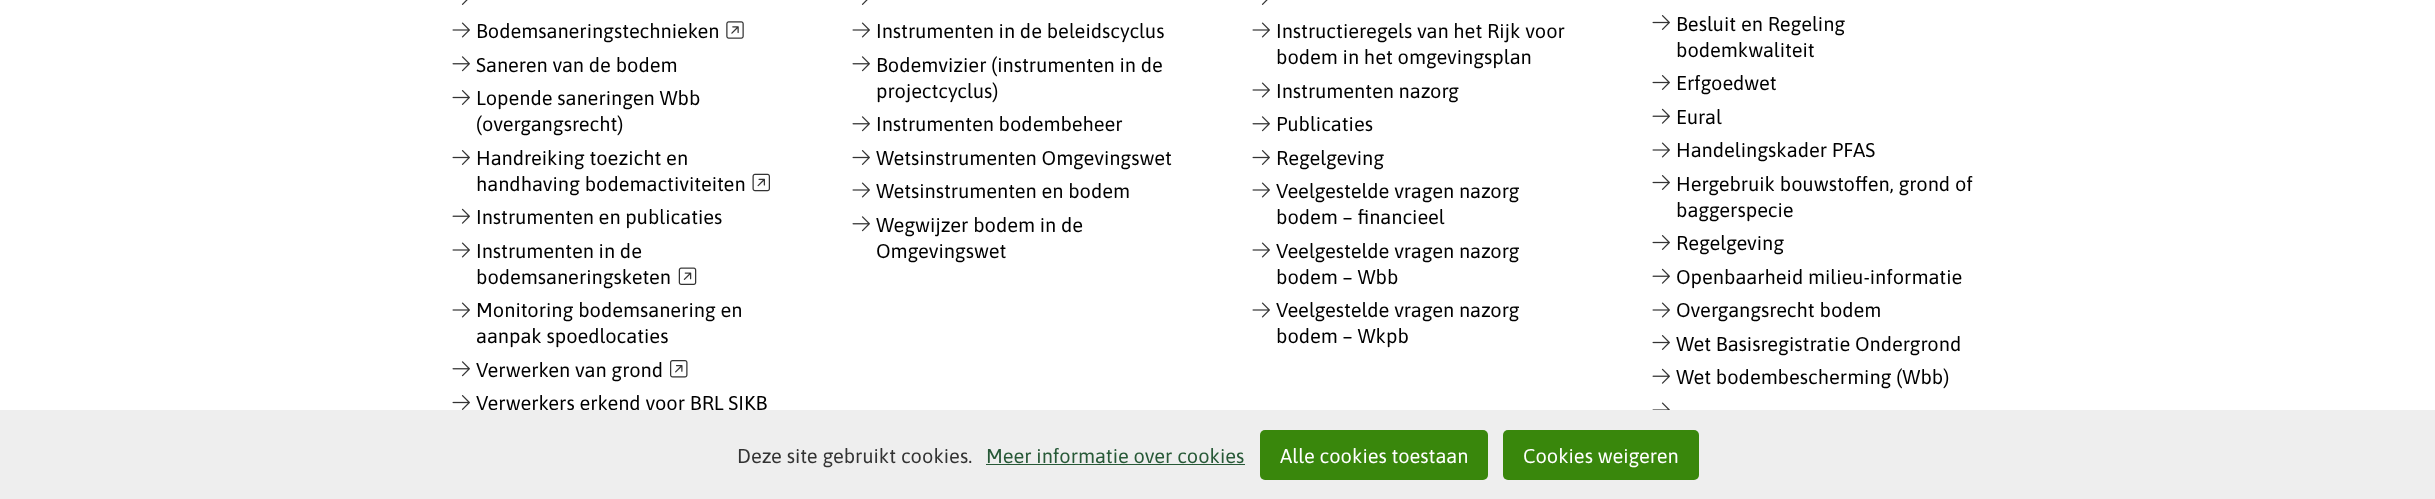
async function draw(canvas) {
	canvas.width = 2435;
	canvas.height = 499;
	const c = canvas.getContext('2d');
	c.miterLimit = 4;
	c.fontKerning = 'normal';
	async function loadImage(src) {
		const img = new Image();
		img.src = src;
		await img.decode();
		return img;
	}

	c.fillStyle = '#fff';
	c.fillRect(0, 0, 2435, 499);
	c.drawImage(await loadImage('img1.png'), 461, 0, 7, 5);
	c.drawImage(await loadImage('img2.png'), 452, 22, 18, 16);
	c.font = '20px Asap';
	c.fillStyle = '#000';
	c.fillText('Bodemsaneringstechnieken', 476, 38);
	c.drawImage(await loadImage('img3.png'), 726, 21, 18, 18);
	c.drawImage(await loadImage('img4.png'), 452, 56, 18, 16);
	c.fillText('Saneren van de bodem', 476, 72);
	c.drawImage(await loadImage('img5.png'), 452, 90, 18, 15);
	c.fillText('Lopende saneringen Wbb', 476, 105);
	c.fillText('(overgangsrecht)', 476, 131);
	c.drawImage(await loadImage('img5.png'), 452, 150, 18, 15);
	c.fillText('Handreiking toezicht en', 476, 165);
	c.fillText('handhaving bodemactiviteiten', 476, 191);
	c.drawImage(await loadImage('img6.png'), 752, 173, 18, 19);
	c.drawImage(await loadImage('img7.png'), 452, 208, 18, 16);
	c.fillText('Instrumenten en publicaties', 476, 224);
	c.drawImage(await loadImage('img2.png'), 452, 242, 18, 16);
	c.fillText('Instrumenten in de', 476, 258);
	c.fillText('bodemsaneringsketen', 476, 284);
	c.drawImage(await loadImage('img8.png'), 678, 267, 19, 18);
	c.drawImage(await loadImage('img2.png'), 452, 302, 18, 16);
	c.fillText('Monitoring bodemsanering en', 476, 317);
	c.fillText('aanpak spoedlocaties', 476, 343);
	c.drawImage(await loadImage('img4.png'), 452, 361, 18, 16);
	c.fillText('Verwerken van grond', 476, 377);
	c.drawImage(await loadImage('img9.png'), 670, 360, 18, 18);
	c.drawImage(await loadImage('img5.png'), 452, 395, 18, 15);
	c.fillText('Verwerkers erkend voor BRL SIKB', 476, 410);
	c.drawImage(await loadImage('img1.png'), 861, 0, 7, 5);
	c.drawImage(await loadImage('img2.png'), 852, 22, 18, 16);
	c.fillText('Instrumenten in de beleidscyclus', 876, 38);
	c.drawImage(await loadImage('img4.png'), 852, 56, 18, 16);
	c.fillText('Bodemvizier (instrumenten in de', 876, 72);
	c.fillText('projectcyclus)', 876, 98);
	c.drawImage(await loadImage('img4.png'), 852, 116, 18, 16);
	c.fillText('Instrumenten bodembeheer', 876, 131);
	c.drawImage(await loadImage('img5.png'), 852, 150, 18, 15);
	c.fillText('Wetsinstrumenten Omgevingswet', 876, 165);
	c.drawImage(await loadImage('img2.png'), 852, 182, 18, 16);
	c.fillText('Wetsinstrumenten en bodem', 876, 198);
	c.drawImage(await loadImage('img4.png'), 852, 216, 18, 16);
	c.fillText('Wegwijzer bodem in de', 876, 232);
	c.fillText('Omgevingswet', 876, 258);
	c.drawImage(await loadImage('img1.png'), 1261, 0, 7, 5);
	c.drawImage(await loadImage('img2.png'), 1252, 22, 18, 16);
	c.fillText('Instructieregels van het Rijk voor', 1276, 38);
	c.fillText('bodem in het omgevingsplan', 1276, 64);
	c.drawImage(await loadImage('img2.png'), 1252, 82, 18, 16);
	c.fillText('Instrumenten nazorg', 1276, 98);
	c.drawImage(await loadImage('img4.png'), 1252, 116, 18, 16);
	c.fillText('Publicaties', 1276, 131);
	c.drawImage(await loadImage('img5.png'), 1252, 150, 18, 15);
	c.fillText('Regelgeving', 1276, 165);
	c.drawImage(await loadImage('img2.png'), 1252, 182, 18, 16);
	c.fillText('Veelgestelde vragen nazorg', 1276, 198);
	c.fillText('bodem – financieel', 1276, 224);
	c.drawImage(await loadImage('img2.png'), 1252, 242, 18, 16);
	c.fillText('Veelgestelde vragen nazorg', 1276, 258);
	c.fillText('bodem – Wbb', 1276, 284);
	c.drawImage(await loadImage('img2.png'), 1252, 302, 18, 16);
	c.fillText('Veelgestelde vragen nazorg', 1276, 317);
	c.fillText('bodem – Wkpb', 1276, 343);
	c.drawImage(await loadImage('img5.png'), 1652, 15, 18, 15);
	c.fillText('Besluit en Regeling', 1676, 31);
	c.fillText('bodemkwaliteit', 1676, 57);
	c.drawImage(await loadImage('img5.png'), 1652, 75, 18, 15);
	c.fillText('Erfgoedwet', 1676, 90);
	c.drawImage(await loadImage('img7.png'), 1652, 108, 18, 16);
	c.fillText('Eural', 1676, 124);
	c.drawImage(await loadImage('img2.png'), 1652, 142, 18, 16);
	c.fillText('Handelingskader PFAS', 1676, 157);
	c.drawImage(await loadImage('img5.png'), 1652, 175, 18, 15);
	c.fillText('Hergebruik bouwstoffen, grond of', 1676, 191);
	c.fillText('baggerspecie', 1676, 217);
	c.drawImage(await loadImage('img5.png'), 1652, 235, 18, 15);
	c.fillText('Regelgeving', 1676, 250);
	c.drawImage(await loadImage('img7.png'), 1652, 268, 18, 16);
	c.fillText('Openbaarheid milieu-informatie', 1676, 284);
	c.drawImage(await loadImage('img2.png'), 1652, 302, 18, 16);
	c.fillText('Overgangsrecht bodem', 1676, 317);
	c.drawImage(await loadImage('img5.png'), 1652, 335, 18, 15);
	c.fillText('Wet Basisregistratie Ondergrond', 1676, 351);
	c.drawImage(await loadImage('img7.png'), 1652, 368, 18, 16);
	c.fillText('Wet bodembescherming (Wbb)', 1676, 384);
	c.drawImage(await loadImage('img10.png'), 1652, 402, 18, 8);
	c.fillStyle = '#eee';
	c.fillRect(0, 410, 2435, 89);
	c.fillStyle = '#333';
	c.fillText('Deze site gebruikt cookies.', 737, 463);
	c.fillStyle = '#275937';
	c.fillText('Meer informatie over cookies', 986, 463);
	c.fillRect(986, 464, 259, 1);
	c.fillStyle = '#39870c';
	c.beginPath();
	c.roundRect(1260, 430, 228, 50, 5);
	c.fill();
	c.fillStyle = '#fff';
	c.fillText('Alle cookies toestaan', 1280, 463);
	c.fillStyle = '#39870c';
	c.beginPath();
	c.roundRect(1503, 430, 196, 50, 5);
	c.fill();
	c.fillStyle = '#fff';
	c.fillText('Cookies weigeren', 1523, 463);
}

draw(document.querySelector('canvas'));
